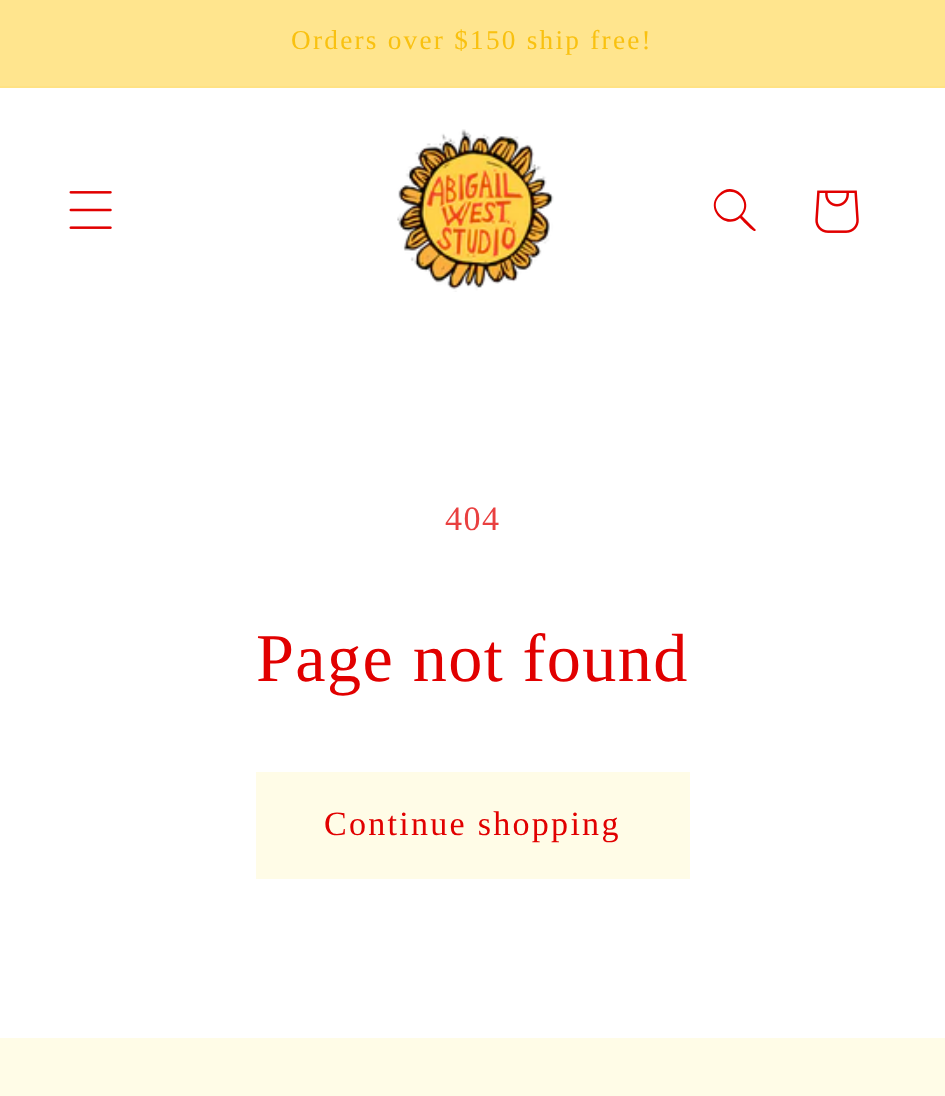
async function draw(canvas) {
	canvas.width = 945;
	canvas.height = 1096;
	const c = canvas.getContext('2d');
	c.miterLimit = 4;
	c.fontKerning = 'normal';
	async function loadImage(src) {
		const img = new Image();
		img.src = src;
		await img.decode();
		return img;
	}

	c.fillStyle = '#fff';
	c.fillRect(0, 0, 945, 1096);
	c.fillStyle = '#ffe58e';
	c.fillRect(0, 0, 945, 86);
	c.fillStyle = '#ffe284';
	c.fillRect(0, 86, 945, 2);
	c.letterSpacing = '2.25px';
	c.font = '27.25px Liberation Serif';
	c.fillStyle = '#f9c110';
	c.fillText('Orders over $150 ship free!', 291, 49);
	c.drawImage(await loadImage('img1.png'), 69, 191, 43, 38);
	c.drawImage(await loadImage('img2.png'), 397, 129, 157, 163);
	c.fillStyle = '#e10000';
	c.beginPath();
	c.moveTo(740, 215);
	c.bezierCurveTo(727, 228, 707, 208, 720, 196);
	c.bezierCurveTo(733, 183, 753, 202, 740, 215);
	c.closePath();
	c.moveTo(740, 218);
	c.bezierCurveTo(725, 231, 704, 208, 719, 194);
	c.bezierCurveTo(733, 179, 756, 201, 742, 216);
	c.lineTo(756, 230);
	c.lineTo(755, 231);
	c.bezierCurveTo(753, 232, 742, 220, 740, 218);
	c.closePath();
	c.fill('evenodd');
	c.drawImage(await loadImage('img3.png'), 815, 190, 44, 43);
	c.letterSpacing = '1.4px';
	c.font = '34.1px Liberation Serif';
	c.fillStyle = '#e94040';
	c.fillText('404', 445, 530);
	c.font = '68.25px Liberation Serif';
	c.fillStyle = '#e10000';
	c.fillText('Page not found', 256, 681);
	c.fillStyle = '#fffce7';
	c.fillRect(256, 772, 434, 107);
	c.letterSpacing = '2.25px';
	c.font = '34.1px Liberation Serif';
	c.fillStyle = '#e10000';
	c.fillText('Continue shopping', 324, 835);
	c.fillStyle = '#fffce7';
	c.fillRect(0, 1038, 945, 58);
}

draw(document.querySelector('canvas'));
